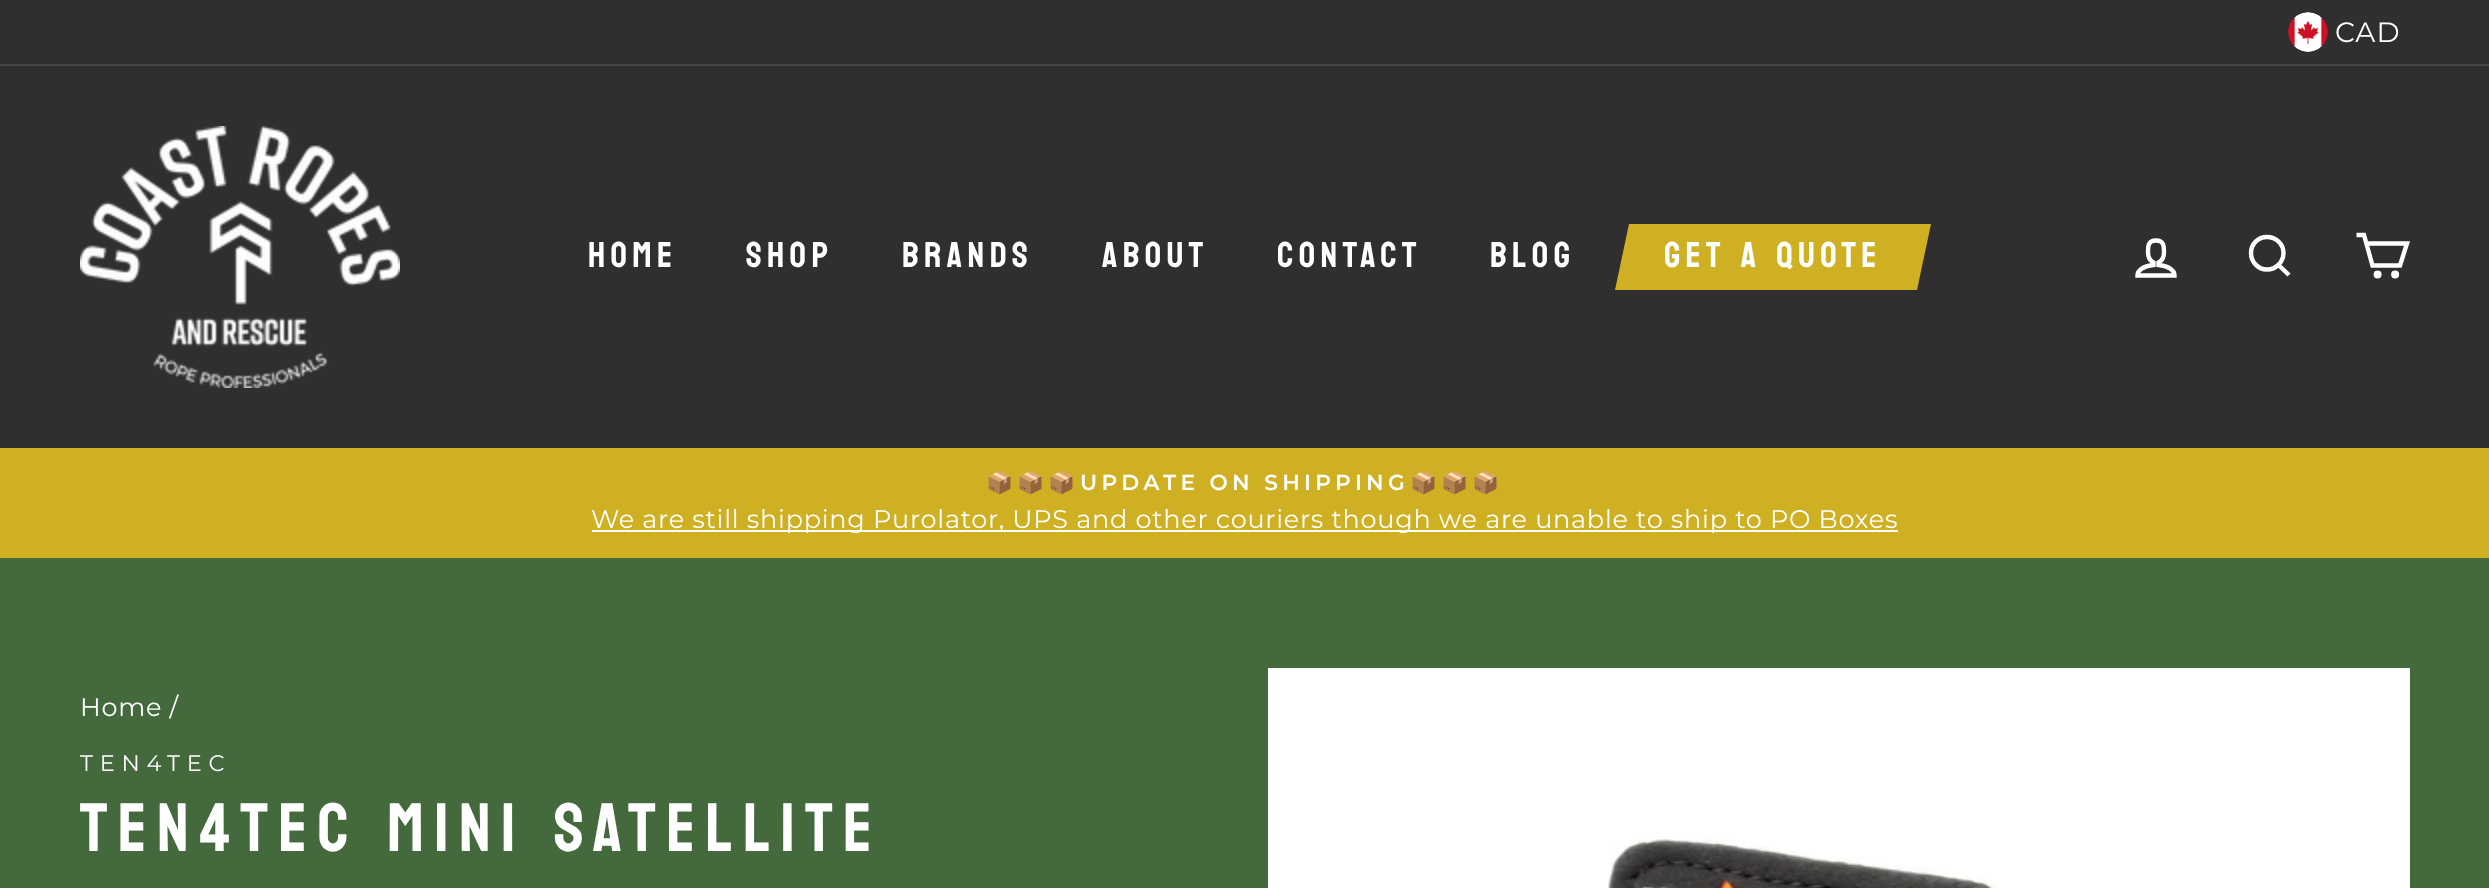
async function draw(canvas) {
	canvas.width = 2489;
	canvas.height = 888;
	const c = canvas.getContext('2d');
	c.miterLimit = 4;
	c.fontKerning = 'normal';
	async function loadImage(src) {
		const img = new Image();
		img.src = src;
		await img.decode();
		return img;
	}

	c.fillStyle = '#44693d';
	c.fillRect(0, 0, 2489, 888);
	c.fillStyle = '#302e2f';
	c.fillRect(0, 0, 2489, 64);
	c.drawImage(await loadImage('img1.png'), 2288, 12, 40, 40);
	c.letterSpacing = '1px';
	c.font = '28px Montserrat';
	c.fillStyle = '#fff';
	c.fillText('CAD', 2335, 42);
	c.fillStyle = '#302e2f';
	c.fillRect(0, 66, 2489, 382);
	c.fillStyle = '#454344';
	c.fillRect(0, 64, 2489, 2);
	c.drawImage(await loadImage('img2.png'), 80, 126, 320, 262);
	c.letterSpacing = '5.4px';
	c.font = '36px Bayon';
	c.fillStyle = '#fff';
	for (const [text, x, y] of [
		['HOME', 588, 267],
		['SHOP', 746, 267],
		['BRANDS', 902, 267],
		['ABOUT', 1102, 267],
		['CONTACT', 1277, 267],
		['BLOG', 1490, 267],
	]) {
		c.fillText(text, x, y);
	}
	c.fillStyle = '#cfb023';
	c.fillRect(1655, 224, 236, 66);
	c.fillStyle = '#fff';
	c.fillText('GET A QUOTE', 1664, 267);
	c.fillStyle = '#cfb023';
	c.beginPath();
	c.moveTo(1629, 224);
	c.lineTo(1669, 224);
	c.lineTo(1655, 290);
	c.lineTo(1615, 290);
	c.closePath();
	c.fill();
	c.beginPath();
	c.moveTo(1891, 224);
	c.lineTo(1931, 224);
	c.lineTo(1917, 290);
	c.lineTo(1877, 290);
	c.closePath();
	c.fill();
	c.beginPath();
	c.moveTo(2158.5, 265);
	c.lineTo(2158.5, 262.5);
	c.bezierCurveTo(2161.5, 261, 2164, 257, 2164, 252.5);
	c.bezierCurveTo(2164, 246, 2164, 240.5, 2156, 240.5);
	c.bezierCurveTo(2148, 240.5, 2148, 246, 2148, 252.5);
	c.bezierCurveTo(2148, 257, 2150.5, 261, 2153.5, 262.5);
	c.lineTo(2153.5, 265);
	c.bezierCurveTo(2144.5, 265.5, 2137.5, 270, 2137.5, 275.5);
	c.lineTo(2174.5, 275.5);
	c.bezierCurveTo(2174.5, 270, 2167.5, 265.5, 2158.5, 265);
	c.closePath();
	c.strokeStyle = '#fff';
	c.lineWidth = 4.4;
	c.stroke();
	c.beginPath();
	c.moveTo(2283.5, 253);
	c.bezierCurveTo(2283.5, 262, 2276, 269.5, 2267, 269.5);
	c.bezierCurveTo(2258, 269.5, 2251, 262, 2251, 253);
	c.bezierCurveTo(2251, 244, 2258, 237, 2267, 237);
	c.bezierCurveTo(2276, 237, 2283.5, 244, 2283.5, 253);
	c.closePath();
	c.moveTo(2289, 275);
	c.lineTo(2278.5, 265);
	c.stroke();
	c.beginPath();
	c.moveTo(2366, 243.5);
	c.lineTo(2407, 243.5);
	c.lineTo(2400, 265.5);
	c.lineTo(2372.5, 265.5);
	c.lineTo(2364, 235);
	c.lineTo(2356.5, 235);
	c.stroke();
	c.fillStyle = '#fff';
	c.beginPath();
	c.arc(2377.6, 274.4, 1.8, 0, 2 * Math.PI);
	c.fill();
	c.stroke();
	c.beginPath();
	c.arc(2395.1, 274.4, 1.8, 0, 2 * Math.PI);
	c.fill();
	c.stroke();
	c.fillStyle = '#cfb023';
	c.fillRect(0, 448, 2489, 110);
	c.letterSpacing = '4.3px';
	c.font = 'bold 21.7px Noto Color Emoji';
	c.fillStyle = '#fff';
	c.fillText('📦📦📦', 986, 490);
	c.font = '600 21.7px Montserrat';
	c.fillText('UPDATE ON SHIPPING', 1080, 490);
	c.font = 'bold 21.7px Noto Color Emoji';
	c.fillText('📦📦📦', 1410, 490);
	c.fillRect(592, 530, 1306, 2);
	c.letterSpacing = '0.75px';
	c.font = '25.5px Montserrat';
	c.fillText('We are still shipping Purolator, UPS and other couriers though we are unable to ship to PO Boxes', 591, 528);
	c.fillText('Home /', 80, 716);
	c.letterSpacing = '6.75px';
	c.font = '22.5px Montserrat';
	c.fillText('TEN4TEC', 80, 771);
	c.letterSpacing = '10.3px';
	c.font = '68.75px Bayon';
	c.fillText('TEN4TEC MINI SATELLITE', 80, 851);
	c.fillRect(1268, 668, 1142, 220);
	c.drawImage(await loadImage('img3.png'), 1608, 839, 390, 49);
}

draw(document.querySelector('canvas'));
